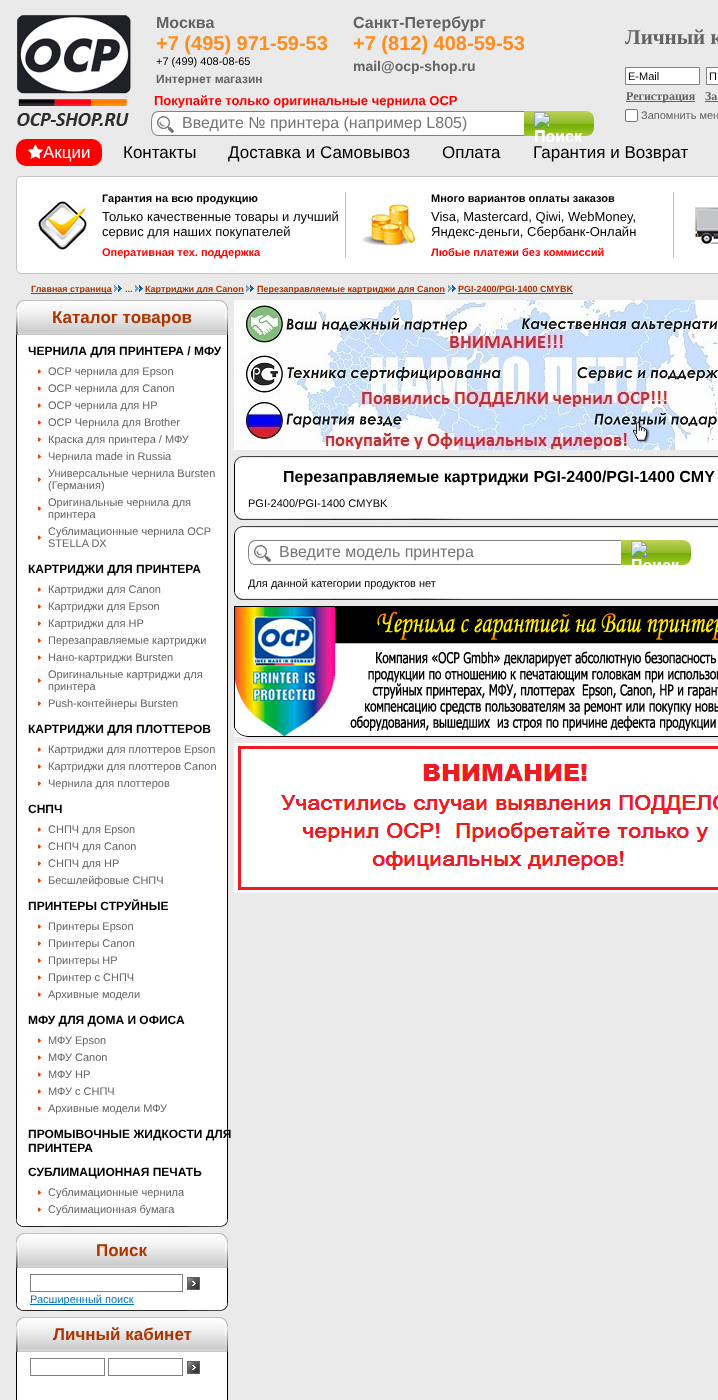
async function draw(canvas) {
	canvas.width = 718;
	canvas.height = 1400;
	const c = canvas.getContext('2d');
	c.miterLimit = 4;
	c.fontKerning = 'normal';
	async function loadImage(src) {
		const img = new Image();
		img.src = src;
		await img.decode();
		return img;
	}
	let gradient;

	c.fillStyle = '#eaeaea';
	c.fillRect(0, 0, 718, 1400);
	c.drawImage(await loadImage('img1.png'), 17, 15, 114, 111);
	c.font = 'bold 16px Liberation Sans';
	c.fillStyle = '#636363';
	c.fillText('Москва', 156, 28);
	c.font = 'bold 20px Liberation Sans';
	c.fillStyle = '#ff8c1c';
	c.fillText('+7 (495) 971-59-53', 156, 50);
	c.font = '11px Liberation Sans';
	c.fillStyle = '#000';
	c.fillText('+7 (499) 408-08-65', 156, 65);
	c.font = 'bold 12px Liberation Sans';
	c.fillStyle = '#636363';
	c.fillText('Интернет магазин', 156, 83);
	c.font = 'bold 16px Liberation Sans';
	c.fillText('Санкт-Петербург', 353, 28);
	c.font = 'bold 20px Liberation Sans';
	c.fillStyle = '#ff8c1c';
	c.fillText('+7 (812) 408-59-53', 353, 50);
	c.font = 'bold 14px Liberation Sans';
	c.fillStyle = '#636363';
	c.fillText('mail@ocp-shop.ru', 353, 71);
	c.font = 'bold 13px Liberation Sans';
	c.fillStyle = '#f00';
	c.fillText('Покупайте только оригинальные чернила ОСР', 154, 105);
	c.fillStyle = '#fff';
	c.beginPath();
	c.roundRect(151, 111, 373, 25, [8, 0, 0, 8]);
	c.fill();
	c.drawImage(await loadImage('img2.png'), 157, 116, 17, 17);
	c.fillStyle = '#818181';
	c.beginPath();
	c.moveTo(159, 111);
	c.lineTo(524, 111);
	c.lineTo(524, 136);
	c.lineTo(159, 136);
	c.bezierCurveTo(151, 136, 151, 129, 151, 124);
	c.bezierCurveTo(151, 118, 151, 111, 159, 111);
	c.closePath();
	c.moveTo(159, 112);
	c.lineTo(524, 112);
	c.lineTo(524, 135);
	c.lineTo(159, 135);
	c.bezierCurveTo(152, 135, 152, 129, 152, 124);
	c.bezierCurveTo(152, 119, 152, 112, 159, 112);
	c.closePath();
	c.fill('evenodd');
	c.font = '16px Liberation Sans';
	c.fillStyle = '#757575';
	c.fillText('Введите № принтера (например L805)', 182, 128);
	gradient = c.createLinearGradient(559, 111, 559, 136);
	gradient.addColorStop(0, '#bfd255');
	gradient.addColorStop(0.5, '#8eb92a');
	gradient.addColorStop(0.51, '#72aa00');
	gradient.addColorStop(1, '#9ecb2d');
	c.fillStyle = gradient;
	c.beginPath();
	c.roundRect(524, 111, 70, 25, [0, 8, 8, 0]);
	c.fill();
	c.drawImage(await loadImage('img3.png'), 534, 112, 48, 24);
	c.font = 'bold 16px Liberation Sans';
	c.fillStyle = '#fff';
	c.fillText('Поиск', 534, 142);
	c.font = 'bold 21px Liberation Serif';
	c.fillStyle = '#636363';
	c.fillText('Личный к', 625, 44);
	c.fillStyle = '#fff';
	c.beginPath();
	c.rect(625.5, 67.5, 74, 17);
	c.fill();
	c.strokeStyle = '#818181';
	c.stroke();
	c.font = '11px Liberation Sans';
	c.fillStyle = '#000';
	c.fillText('E-Mail', 628, 80);
	c.fillStyle = '#fff';
	c.beginPath();
	c.rect(706.5, 67.5, 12, 17);
	c.fill();
	c.stroke();
	c.fillStyle = '#000';
	c.fillText('П', 709, 80);
	c.fillStyle = '#636363';
	c.fillRect(626, 101, 69, 1);
	c.font = 'bold 12px Liberation Serif';
	c.fillText('Регистрация', 626, 100);
	c.fillText('За', 705, 100);
	c.fillRect(705, 101, 13, 1);
	c.fillStyle = '#fff';
	c.beginPath();
	c.roundRect(625.5, 109.5, 12, 12, 1.5);
	c.fill();
	c.strokeStyle = '#767676';
	c.stroke();
	c.font = '11px Liberation Sans';
	c.fillStyle = '#636363';
	c.fillText('Запомнить мен', 641, 119);
	c.fillStyle = '#f00';
	c.beginPath();
	c.roundRect(16, 139, 86, 27, 10);
	c.fill();
	c.drawImage(await loadImage('img4.png'), 28, 144, 15, 15);
	c.font = '17px Liberation Sans';
	c.fillStyle = '#fff';
	c.fillText('Акции', 43, 158);
	c.fillStyle = '#000';
	for (const [text, x, y] of [
		['Контакты', 123, 158],
		['Доставка и Самовывоз', 228, 158],
		['Оплата', 442, 158],
		['Гарантия и Возврат', 533, 158],
	]) {
		c.fillText(text, x, y);
	}
	c.fillStyle = '#fff';
	c.beginPath();
	c.roundRect(16.5, 176.5, 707, 97, 4.5);
	c.fill();
	c.strokeStyle = '#c4c4c4';
	c.stroke();
	c.drawImage(await loadImage('img5.png'), 37, 201, 51, 50);
	c.fillStyle = '#c4c4c4';
	c.fillRect(345, 192, 1, 66);
	c.font = 'bold 11px Liberation Sans';
	c.fillStyle = '#000';
	c.fillText('Гарантия на всю продукцию', 102, 202);
	c.font = '13px Liberation Sans';
	c.fillText('Только качественные товары и лучший', 102, 221);
	c.fillText('сервис для наших покупателей', 102, 236);
	c.font = 'bold 11px Liberation Sans';
	c.fillStyle = '#f00';
	c.fillText('Оперативная тех. поддержка', 102, 256);
	c.drawImage(await loadImage('img6.png'), 361, 203, 55, 43);
	c.fillStyle = '#c4c4c4';
	c.fillRect(673, 192, 1, 66);
	c.fillStyle = '#000';
	c.fillText('Много вариантов оплаты заказов', 431, 202);
	c.font = '13px Liberation Sans';
	c.fillText('Visa, Mastercard, Qiwi, WebMoney,', 431, 221);
	c.fillText('Яндекс-деньги, Сбербанк-Онлайн', 431, 236);
	c.font = 'bold 11px Liberation Sans';
	c.fillStyle = '#f00';
	c.fillText('Любые платежи без коммиссий', 431, 256);
	c.drawImage(await loadImage('img7.png'), 695, 207, 23, 38);
	c.fillStyle = '#ab3400';
	c.fillRect(31, 293, 81, 1);
	c.font = 'bold 9px Liberation Sans';
	c.fillText('Главная страница', 31, 292);
	c.drawImage(await loadImage('img8.png'), 114, 285, 8, 7);
	c.fillText('...', 125, 292);
	c.drawImage(await loadImage('img8.png'), 135, 285, 8, 7);
	c.fillRect(145, 293, 99, 1);
	c.fillText('Картриджи для Canon', 145, 292);
	c.drawImage(await loadImage('img8.png'), 246, 285, 8, 7);
	c.fillRect(257, 293, 188, 1);
	c.fillText('Перезаправляемые картриджи для Canon', 257, 292);
	c.drawImage(await loadImage('img8.png'), 448, 285, 8, 7);
	c.fillText('PGI-2400/PGI-1400 CMYBK', 458, 292);
	c.fillRect(458, 293, 115, 1);
	c.drawImage(await loadImage('img9.png'), 16, 300, 212, 35);
	c.font = 'bold 17px Liberation Sans';
	c.fillText('Каталог товаров', 52, 323);
	for (const [x, y, w, h, color] of [
		[17, 335, 210, 884, '#fff'],
		[227, 335, 1, 889, '#000'],
		[16, 335, 1, 889, '#000'],
	]) {
		c.fillStyle = color;
		c.fillRect(x, y, w, h);
	}
	c.font = 'bold 12px Liberation Sans';
	c.fillText('ЧЕРНИЛА ДЛЯ ПРИНТЕРА / МФУ', 28, 355);
	c.drawImage(await loadImage('img10.png'), 38, 369, 3, 5);
	c.font = '11px Liberation Sans';
	c.fillStyle = '#636363';
	c.fillText('OCP чернила для Epson', 48, 375);
	c.drawImage(await loadImage('img10.png'), 38, 386, 3, 5);
	c.fillText('OCP чернила для Canon', 48, 392);
	c.drawImage(await loadImage('img10.png'), 38, 403, 3, 5);
	c.fillText('OCP чернила для HP', 48, 409);
	c.drawImage(await loadImage('img10.png'), 38, 420, 3, 5);
	c.fillText('OCP Чернила для Brother', 48, 426);
	c.drawImage(await loadImage('img10.png'), 38, 437, 3, 5);
	c.fillText('Краска для принтера / МФУ', 48, 443);
	c.drawImage(await loadImage('img10.png'), 38, 454, 3, 5);
	c.fillText('Чернила made in Russia', 48, 460);
	c.drawImage(await loadImage('img10.png'), 38, 477, 3, 5);
	c.fillText('Универсальные чернила Bursten', 48, 477);
	c.fillText('(Германия)', 48, 489);
	c.drawImage(await loadImage('img10.png'), 38, 506, 3, 5);
	c.fillText('Оригинальные чернила для', 48, 506);
	c.fillText('принтера', 48, 518);
	c.drawImage(await loadImage('img10.png'), 38, 535, 3, 5);
	c.fillText('Сублимационные чернила OСP', 48, 535);
	c.fillText('STELLA DX', 48, 547);
	c.font = 'bold 12px Liberation Sans';
	c.fillStyle = '#000';
	c.fillText('КАРТРИДЖИ ДЛЯ ПРИНТЕРА', 28, 573);
	c.drawImage(await loadImage('img10.png'), 38, 587, 3, 5);
	c.font = '11px Liberation Sans';
	c.fillStyle = '#636363';
	c.fillText('Картриджи для Canon', 48, 593);
	c.drawImage(await loadImage('img10.png'), 38, 604, 3, 5);
	c.fillText('Картриджи для Epson', 48, 610);
	c.drawImage(await loadImage('img10.png'), 38, 621, 3, 5);
	c.fillText('Картриджи для HP', 48, 627);
	c.drawImage(await loadImage('img10.png'), 38, 638, 3, 5);
	c.fillText('Перезаправляемые картриджи', 48, 644);
	c.drawImage(await loadImage('img10.png'), 38, 655, 3, 5);
	c.fillText('Нано-картриджи Bursten', 48, 661);
	c.drawImage(await loadImage('img10.png'), 38, 678, 3, 5);
	c.fillText('Оригинальные картриджи для', 48, 678);
	c.fillText('принтера', 48, 690);
	c.drawImage(await loadImage('img10.png'), 38, 701, 3, 5);
	c.fillText('Push-контейнеры Bursten', 48, 707);
	c.font = 'bold 12px Liberation Sans';
	c.fillStyle = '#000';
	c.fillText('КАРТРИДЖИ ДЛЯ ПЛОТТЕРОВ', 28, 733);
	c.drawImage(await loadImage('img10.png'), 38, 747, 3, 5);
	c.font = '11px Liberation Sans';
	c.fillStyle = '#636363';
	c.fillText('Картриджи для плоттеров Epson', 48, 753);
	c.drawImage(await loadImage('img10.png'), 38, 764, 3, 5);
	c.fillText('Картриджи для плоттеров Canon', 48, 770);
	c.drawImage(await loadImage('img10.png'), 38, 781, 3, 5);
	c.fillText('Чернила для плоттеров', 48, 787);
	c.font = 'bold 12px Liberation Sans';
	c.fillStyle = '#000';
	c.fillText('СНПЧ', 28, 813);
	c.drawImage(await loadImage('img10.png'), 38, 827, 3, 5);
	c.font = '11px Liberation Sans';
	c.fillStyle = '#636363';
	c.fillText('СНПЧ для Epson', 48, 833);
	c.drawImage(await loadImage('img10.png'), 38, 844, 3, 5);
	c.fillText('СНПЧ для Canon', 48, 850);
	c.drawImage(await loadImage('img10.png'), 38, 861, 3, 5);
	c.fillText('СНПЧ для HP', 48, 867);
	c.drawImage(await loadImage('img10.png'), 38, 878, 3, 5);
	c.fillText('Бесшлейфовые СНПЧ', 48, 884);
	c.font = 'bold 12px Liberation Sans';
	c.fillStyle = '#000';
	c.fillText('ПРИНТЕРЫ СТРУЙНЫЕ', 28, 910);
	c.drawImage(await loadImage('img10.png'), 38, 924, 3, 5);
	c.font = '11px Liberation Sans';
	c.fillStyle = '#636363';
	c.fillText('Принтеры Epson', 48, 930);
	c.drawImage(await loadImage('img10.png'), 38, 941, 3, 5);
	c.fillText('Принтеры Canon', 48, 947);
	c.drawImage(await loadImage('img10.png'), 38, 958, 3, 5);
	c.fillText('Принтеры HP', 48, 964);
	c.drawImage(await loadImage('img10.png'), 38, 975, 3, 5);
	c.fillText('Принтер с СНПЧ', 48, 981);
	c.drawImage(await loadImage('img10.png'), 38, 992, 3, 5);
	c.fillText('Архивные модели', 48, 998);
	c.font = 'bold 12px Liberation Sans';
	c.fillStyle = '#000';
	c.fillText('МФУ ДЛЯ ДОМА И ОФИСА', 28, 1024);
	c.drawImage(await loadImage('img10.png'), 38, 1038, 3, 5);
	c.font = '11px Liberation Sans';
	c.fillStyle = '#636363';
	c.fillText('МФУ Epson', 48, 1044);
	c.drawImage(await loadImage('img10.png'), 38, 1055, 3, 5);
	c.fillText('МФУ Canon', 48, 1061);
	c.drawImage(await loadImage('img10.png'), 38, 1072, 3, 5);
	c.fillText('МФУ HP', 48, 1078);
	c.drawImage(await loadImage('img10.png'), 38, 1089, 3, 5);
	c.fillText('МФУ с СНПЧ', 48, 1095);
	c.drawImage(await loadImage('img10.png'), 38, 1106, 3, 5);
	c.fillText('Архивные модели МФУ', 48, 1112);
	c.font = 'bold 12px Liberation Sans';
	c.fillStyle = '#000';
	for (const [text, x, y] of [
		['ПРОМЫВОЧНЫЕ ЖИДКОСТИ ДЛЯ', 28, 1138],
		['ПРИНТЕРА', 28, 1152],
		['СУБЛИМАЦИОННАЯ ПЕЧАТЬ', 28, 1176],
	]) {
		c.fillText(text, x, y);
	}
	c.drawImage(await loadImage('img10.png'), 38, 1190, 3, 5);
	c.font = '11px Liberation Sans';
	c.fillStyle = '#636363';
	c.fillText('Сублимационные чернила', 48, 1196);
	c.drawImage(await loadImage('img10.png'), 38, 1207, 3, 5);
	c.fillText('Сублимационная бумага', 48, 1213);
	c.drawImage(await loadImage('img11.png'), 16, 1219, 212, 8);
	c.drawImage(await loadImage('img9.png'), 16, 1233, 212, 35);
	c.font = 'bold 17px Liberation Sans';
	c.fillStyle = '#ab3400';
	c.fillText('Поиск', 96, 1256);
	for (const [x, y, w, h, color] of [
		[17, 1268, 210, 35, '#fff'],
		[227, 1268, 1, 40, '#000'],
		[16, 1268, 1, 40, '#000'],
	]) {
		c.fillStyle = color;
		c.fillRect(x, y, w, h);
	}
	c.strokeStyle = '#818181';
	c.strokeRect(30.5, 1274.5, 152, 17);
	c.drawImage(await loadImage('img12.png'), 187, 1277, 13, 13);
	c.drawImage(await loadImage('img11.png'), 16, 1303, 212, 8);
	c.fillStyle = '#0072bc';
	c.fillRect(30, 1304, 104, 1);
	c.font = '11px Liberation Sans';
	c.fillText('Расширенный поиск', 30, 1303);
	c.drawImage(await loadImage('img9.png'), 16, 1317, 212, 35);
	c.font = 'bold 17px Liberation Sans';
	c.fillStyle = '#ab3400';
	c.fillText('Личный кабинет', 53, 1340);
	for (const [x, y, w, h, color] of [
		[17, 1352, 210, 48, '#fff'],
		[227, 1352, 1, 48, '#000'],
		[16, 1352, 1, 48, '#000'],
	]) {
		c.fillStyle = color;
		c.fillRect(x, y, w, h);
	}
	c.strokeRect(30.5, 1358.5, 74, 17);
	c.strokeRect(108.5, 1358.5, 74, 17);
	c.drawImage(await loadImage('img12.png'), 187, 1361, 13, 13);
	c.drawImage(await loadImage('img13.png'), 234, 300, 484, 150);
	c.drawImage(await loadImage('img14.png'), 234, 456, 484, 8);
	c.fillStyle = '#fff';
	c.fillRect(235, 464, 483, 48);
	c.fillStyle = '#000';
	c.fillRect(234, 464, 1, 48);
	c.font = 'bold 16px Liberation Sans';
	c.fillText('Перезаправляемые картриджи PGI-2400/PGI-1400 CMY', 283, 482);
	c.font = '11px Liberation Sans';
	c.fillText('PGI-2400/PGI-1400 CMYBK', 248, 507);
	c.drawImage(await loadImage('img15.png'), 234, 512, 484, 8);
	c.drawImage(await loadImage('img14.png'), 234, 526, 484, 8);
	c.fillStyle = '#fff';
	c.fillRect(235, 534, 483, 58);
	c.fillStyle = '#000';
	c.fillRect(234, 534, 1, 58);
	c.drawImage(await loadImage('img2.png'), 254, 545, 17, 17);
	c.fillStyle = '#818181';
	c.beginPath();
	c.moveTo(256, 540);
	c.lineTo(621, 540);
	c.lineTo(621, 565);
	c.lineTo(256, 565);
	c.bezierCurveTo(248, 565, 248, 558, 248, 552);
	c.bezierCurveTo(248, 547, 248, 540, 256, 540);
	c.closePath();
	c.moveTo(256, 541);
	c.lineTo(621, 541);
	c.lineTo(621, 564);
	c.lineTo(256, 564);
	c.bezierCurveTo(249, 564, 249, 558, 249, 552);
	c.bezierCurveTo(249, 548, 249, 541, 256, 541);
	c.closePath();
	c.fill('evenodd');
	c.font = '16px Liberation Sans';
	c.fillStyle = '#757575';
	c.fillText('Введите модель принтера', 279, 557);
	gradient = c.createLinearGradient(656, 540, 656, 565);
	gradient.addColorStop(0, '#bfd255');
	gradient.addColorStop(0.5, '#8eb92a');
	gradient.addColorStop(0.51, '#72aa00');
	gradient.addColorStop(1, '#9ecb2d');
	c.fillStyle = gradient;
	c.beginPath();
	c.roundRect(621, 540, 70, 25, [0, 8, 8, 0]);
	c.fill();
	c.drawImage(await loadImage('img3.png'), 631, 541, 48, 24);
	c.font = '11px Liberation Sans';
	c.fillStyle = '#000';
	c.fillText('Для данной категории продуктов нет', 248, 587);
	c.drawImage(await loadImage('img15.png'), 234, 592, 484, 8);
	c.drawImage(await loadImage('img16.png'), 234, 606, 484, 131);
	c.drawImage(await loadImage('img17.png'), 234, 743, 484, 150);
}

draw(document.querySelector('canvas'));
